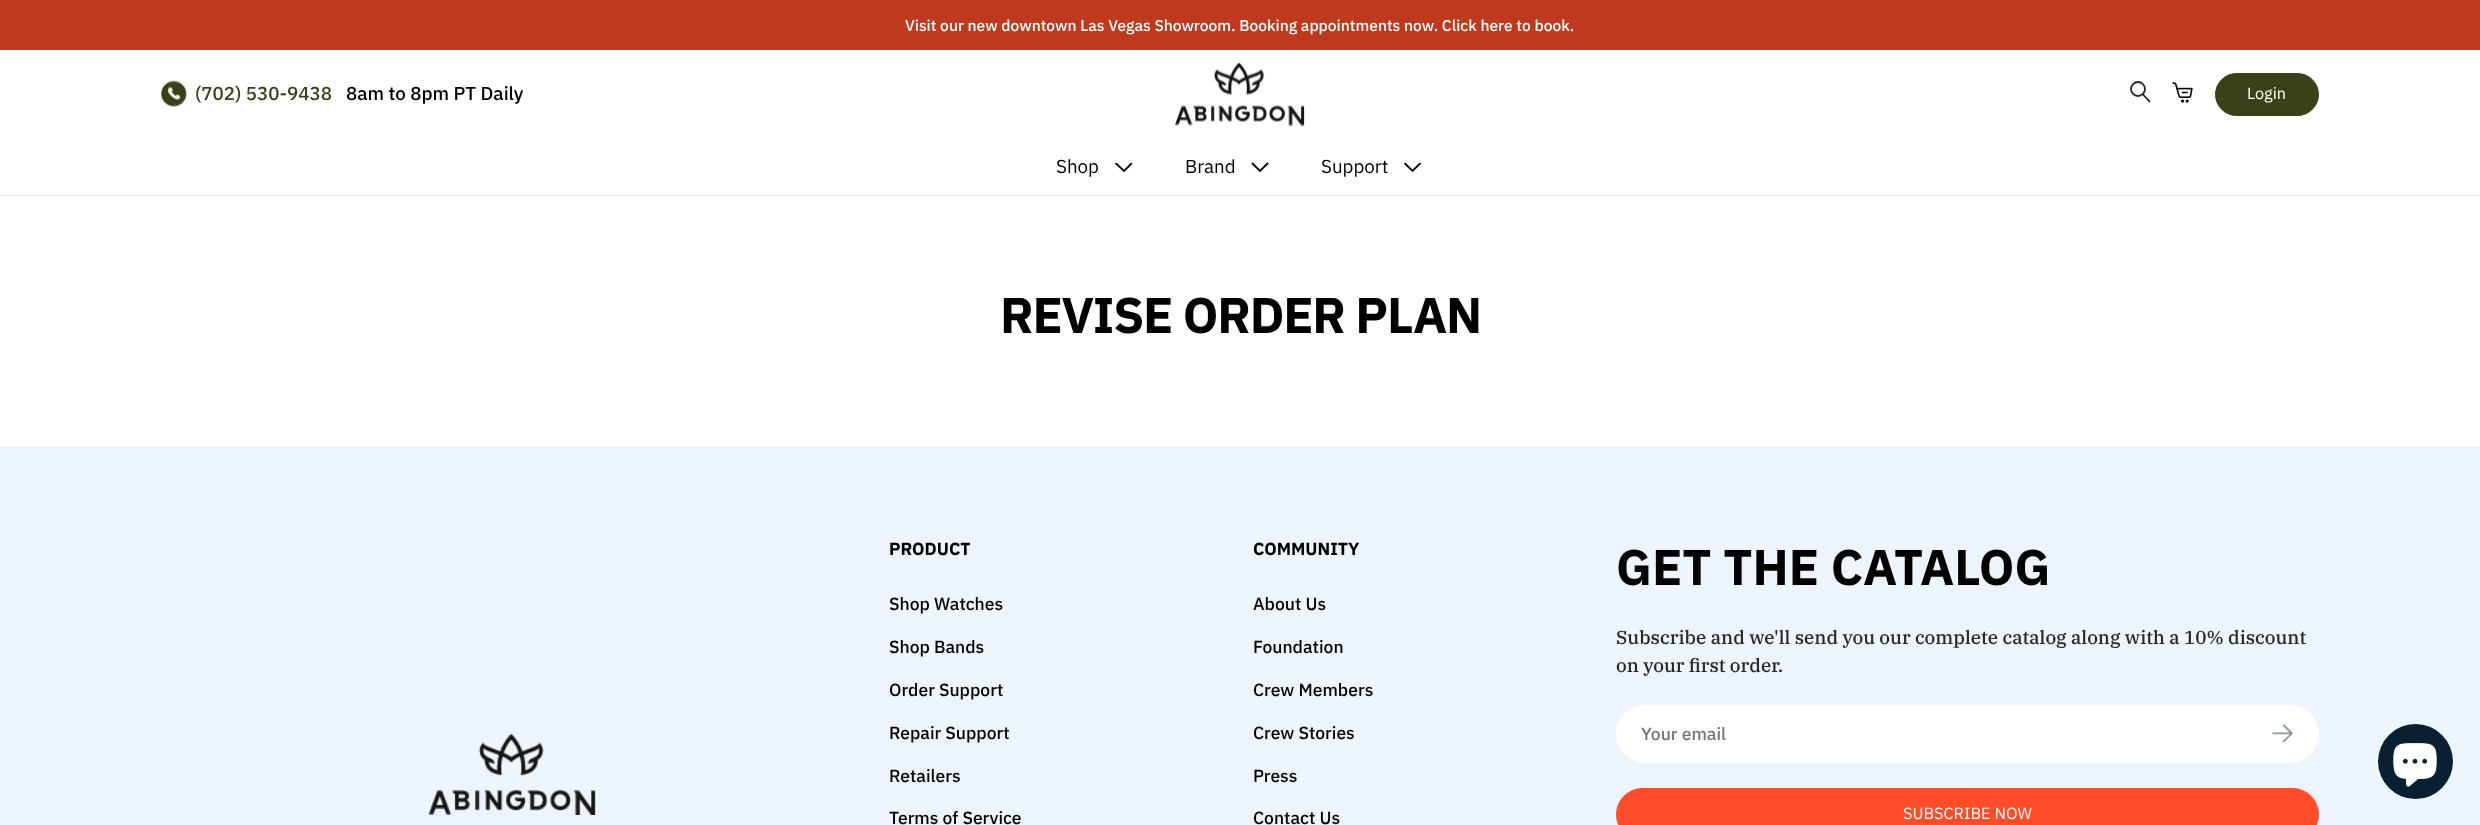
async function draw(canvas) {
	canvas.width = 2480;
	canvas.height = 825;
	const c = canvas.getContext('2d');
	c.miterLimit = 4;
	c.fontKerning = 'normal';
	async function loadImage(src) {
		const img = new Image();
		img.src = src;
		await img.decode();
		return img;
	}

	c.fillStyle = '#fff';
	c.fillRect(0, 0, 2480, 825);
	c.fillStyle = '#bf391f';
	c.fillRect(0, 0, 2480, 50);
	c.font = '500 15.6px IBM Plex Sans';
	c.fillStyle = '#fff';
	c.fillText('Visit our new downtown Las Vegas Showroom. Booking appointments now. Click here to book.', 905, 31);
	c.fillStyle = '#e8e8e8';
	c.fillRect(0, 195, 2480, 1);
	c.drawImage(await loadImage('img1.png'), 161, 80, 26, 27);
	c.font = '500 18.75px IBM Plex Sans';
	c.fillStyle = '#3b4019';
	c.fillText('(702) 530-9438', 195, 100);
	c.fillStyle = '#000';
	c.fillText('8am to 8pm PT Daily', 346, 100);
	c.drawImage(await loadImage('img2.png'), 1175, 63, 130, 63);
	c.beginPath();
	c.arc(2138, 89, 7, 0, 2 * Math.PI);
	c.strokeStyle = '#262626';
	c.lineWidth = 1.8;
	c.stroke();
	c.beginPath();
	c.moveTo(2142.5, 94);
	c.lineTo(2150, 102);
	c.strokeStyle = '#1d1d1d';
	c.stroke();
	c.drawImage(await loadImage('img3.png'), 2172, 82, 21, 21);
	c.fillStyle = '#3b4019';
	c.beginPath();
	c.roundRect(2215.5, 73.5, 103, 42, 21);
	c.fill();
	c.strokeStyle = '#3b4019';
	c.lineWidth = 1;
	c.stroke();
	c.font = '16.25px IBM Plex Sans';
	c.fillStyle = '#fff';
	c.fillText('Login', 2247, 99);
	c.font = '18.75px IBM Plex Sans';
	c.fillStyle = '#000';
	c.fillText('Shop', 1056, 173);
	c.save();
	c.beginPath();
	c.rect(1113, 163, 22, 10);
	c.clip();
	c.beginPath();
	c.moveTo(1115.5, 163);
	c.lineTo(1124, 171);
	c.lineTo(1132, 163);
	c.strokeStyle = '#070707';
	c.lineWidth = 1.9;
	c.stroke();
	c.restore();
	c.fillText('Brand', 1185, 173);
	c.beginPath();
	c.moveTo(1252, 163);
	c.lineTo(1260, 171);
	c.lineTo(1268, 163);
	c.strokeStyle = '#070707';
	c.lineWidth = 1.9;
	c.stroke();
	c.fillText('Support', 1321, 173);
	c.save();
	c.beginPath();
	c.rect(1401, 163, 23, 10);
	c.clip();
	c.beginPath();
	c.moveTo(1404.5, 163);
	c.lineTo(1412.5, 171);
	c.lineTo(1420.5, 163);
	c.stroke();
	c.restore();
	c.letterSpacing = '-1.25px';
	c.font = 'bold 50px IBM Plex Sans';
	c.fillText('REVISE ORDER PLAN', 1000, 333);
	c.fillStyle = '#eef4fb';
	c.fillRect(0, 446, 2480, 379);
	c.drawImage(await loadImage('img4.png'), 428, 733, 168, 82);
	c.letterSpacing = '0px';
	c.font = 'bold 17.5px IBM Plex Sans';
	c.fillStyle = '#000';
	c.fillText('PRODUCT', 889, 555);
	c.font = '500 17.5px IBM Plex Sans';
	for (const [text, x, y] of [
		['Shop Watches', 889, 610],
		['Shop Bands', 889, 653],
		['Order Support', 889, 696],
		['Repair Support', 889, 739],
		['Retailers', 889, 782],
		['Terms of Service', 889, 824],
	]) {
		c.fillText(text, x, y);
	}
	c.font = 'bold 17.5px IBM Plex Sans';
	c.fillText('COMMUNITY', 1253, 555);
	c.font = '500 17.5px IBM Plex Sans';
	for (const [text, x, y] of [
		['About Us', 1253, 610],
		['Foundation', 1253, 653],
		['Crew Members', 1253, 696],
		['Crew Stories', 1253, 739],
		['Press', 1253, 782],
		['Contact Us', 1253, 824],
	]) {
		c.fillText(text, x, y);
	}
	c.font = 'bold 50px IBM Plex Sans';
	c.fillText('GET THE CATALOG', 1616, 585);
	c.font = '500 18.75px IBM Plex Serif';
	c.fillStyle = '#282828';
	c.fillText('Subscribe and we\'ll send you our complete catalog along with a 10% discount', 1616, 644);
	c.fillText('on your first order.', 1616, 672);
	c.fillStyle = '#fff';
	c.beginPath();
	c.roundRect(1616, 705, 703, 58, 29);
	c.fill();
	c.font = '500 17.5px IBM Plex Sans';
	c.fillStyle = '#757575';
	c.fillText('Your email', 1641, 740);
	c.drawImage(await loadImage('img5.png'), 2272, 724, 21, 19);
	c.fillStyle = '#ff4c29';
	c.beginPath();
	c.roundRect(1616.5, 788.5, 702, 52, 26);
	c.fill();
	c.strokeStyle = '#ff4c29';
	c.lineWidth = 1;
	c.stroke();
	c.font = '16.25px IBM Plex Sans';
	c.fillStyle = '#fff';
	c.fillText('SUBSCRIBE NOW', 1903, 819);
	c.fillStyle = '#082032';
	c.beginPath();
	c.arc(2415.5, 761.5, 37.5, 0, 2 * Math.PI);
	c.fill();
	c.drawImage(await loadImage('img6.png'), 2393, 743, 44, 44);
}

draw(document.querySelector('canvas'));
